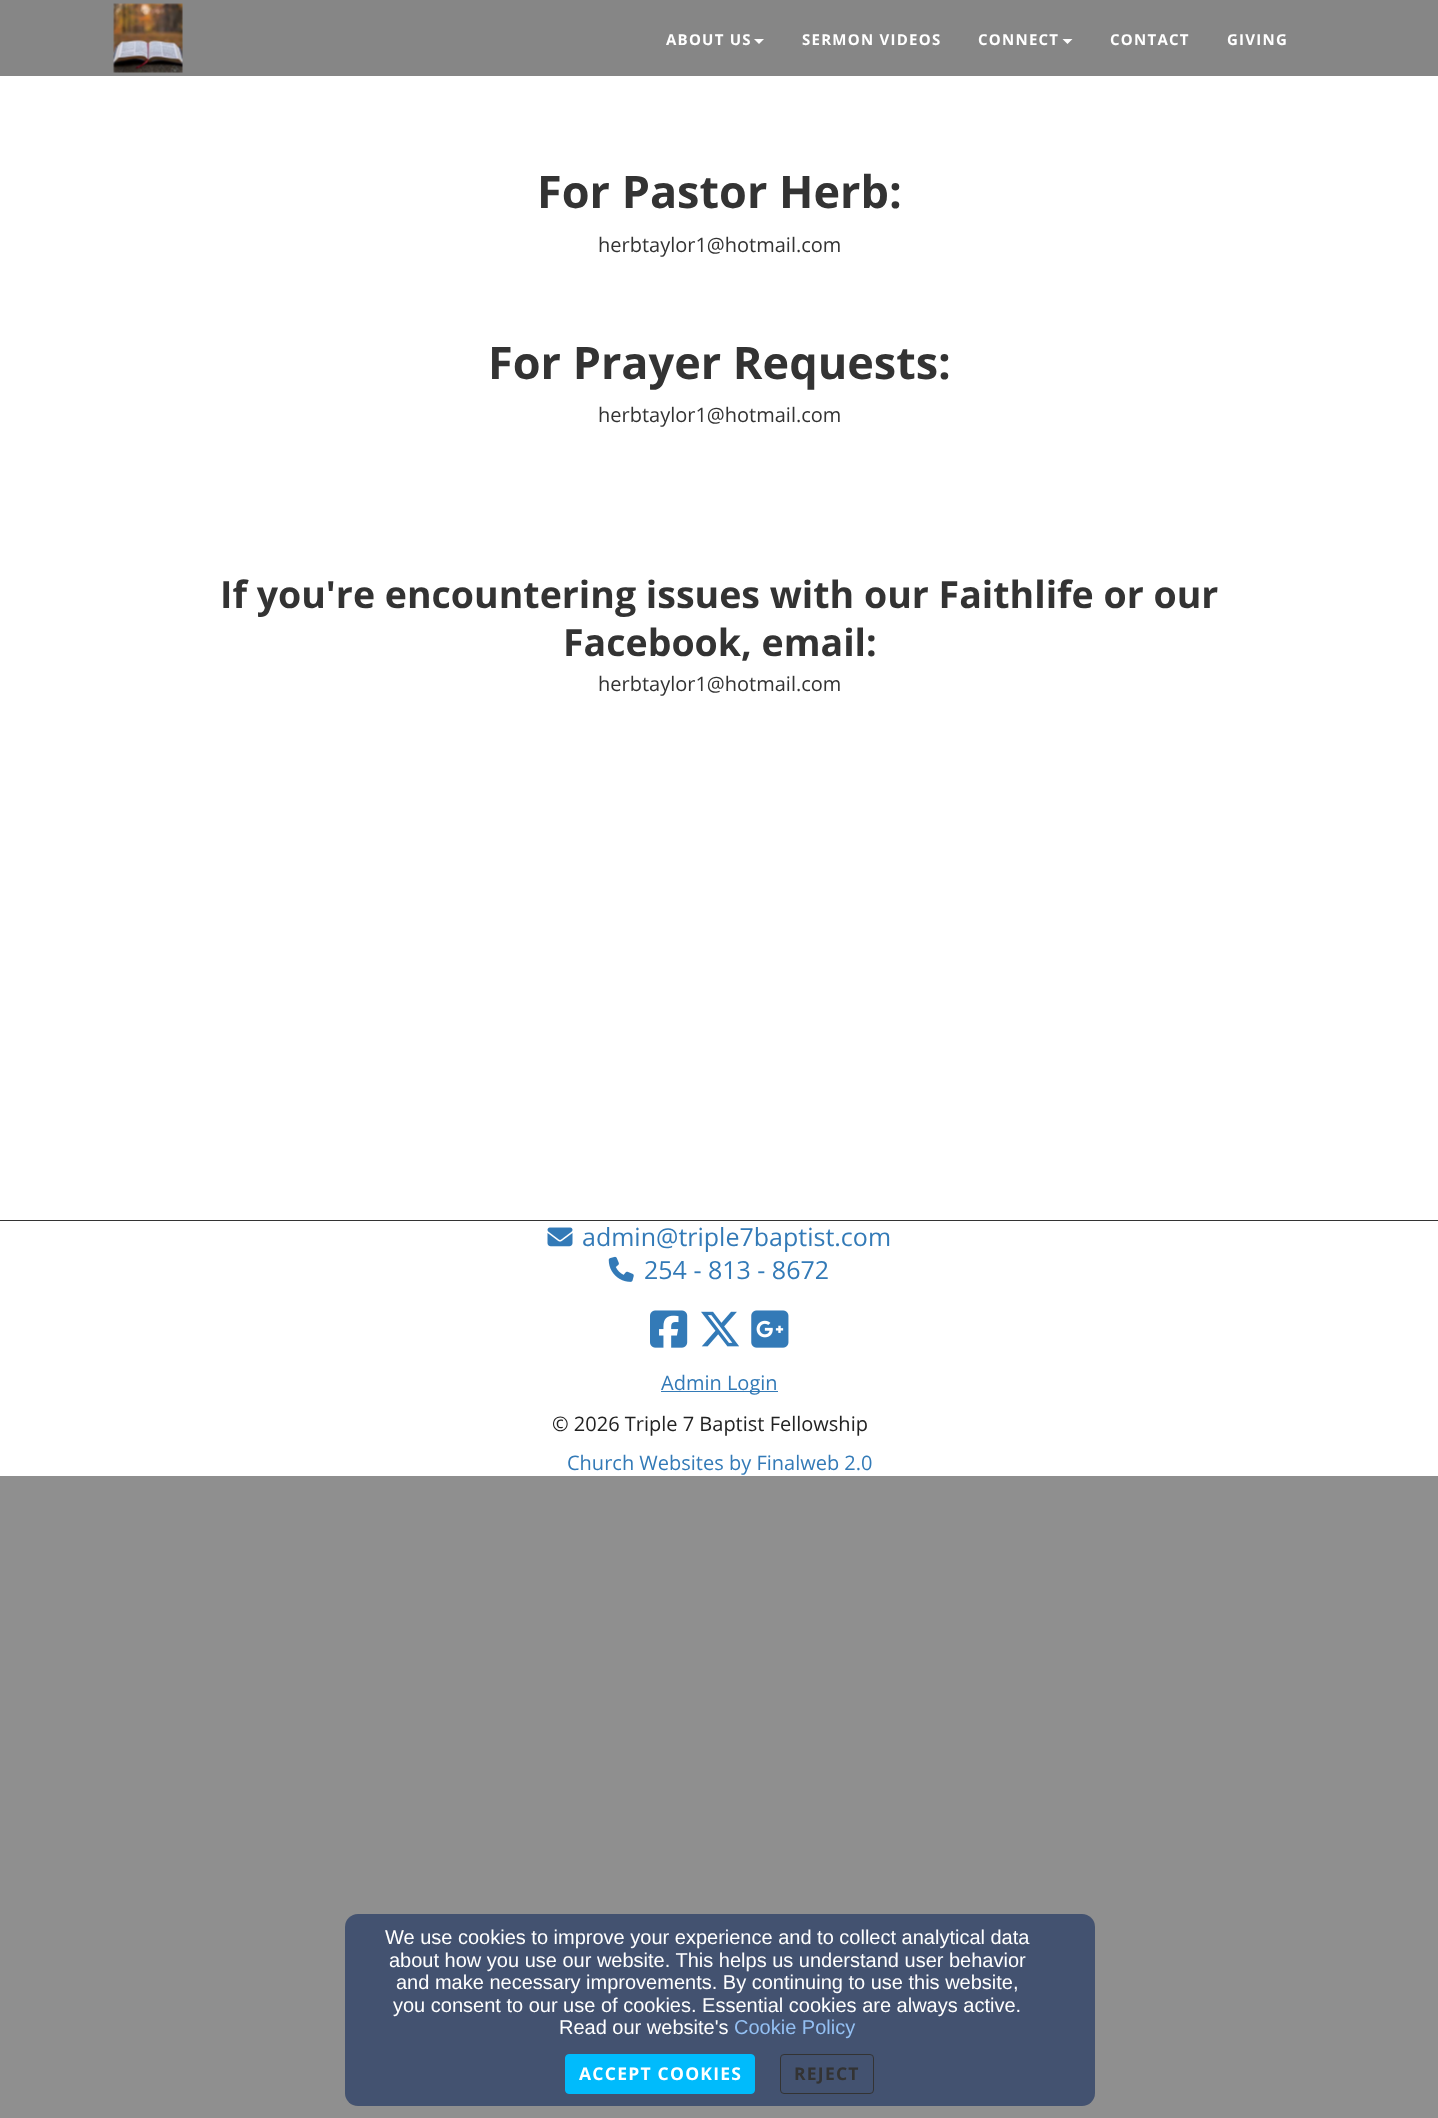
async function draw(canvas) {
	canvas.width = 1438;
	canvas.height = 2118;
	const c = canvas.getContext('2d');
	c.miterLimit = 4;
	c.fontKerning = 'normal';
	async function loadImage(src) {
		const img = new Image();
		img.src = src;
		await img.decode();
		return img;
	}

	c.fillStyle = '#8f8f8f';
	c.fillRect(0, 0, 1438, 2118);
	c.fillStyle = '#868686';
	c.fillRect(0, 0, 1438, 76);
	c.drawImage(await loadImage('img1.png'), 113, 3, 70, 70);
	c.letterSpacing = '1.25px';
	c.font = 'bold 15px Open Sans';
	c.fillStyle = '#fff';
	c.fillText('ABOUT US', 666, 45);
	c.beginPath();
	c.moveTo(754, 39);
	c.lineTo(764, 39);
	c.lineTo(759, 44);
	c.closePath();
	c.fill();
	c.fillText('SERMON VIDEOS', 802, 45);
	c.fillText('CONNECT', 978, 45);
	c.beginPath();
	c.moveTo(1062.5, 39);
	c.lineTo(1072.5, 39);
	c.lineTo(1067.5, 44);
	c.closePath();
	c.fill();
	c.fillText('CONTACT', 1110, 45);
	c.fillText('GIVING', 1227, 45);
	c.fillRect(0, 76, 1438, 1144);
	c.letterSpacing = '0px';
	c.font = 'bold 45px Open Sans';
	c.fillStyle = '#333';
	c.fillText('For Pastor Herb:', 537, 208);
	c.font = '20px Open Sans';
	c.fillText('herbtaylor1@hotmail.com', 598, 252);
	c.font = 'bold 45px Open Sans';
	c.fillText('For Prayer Requests:', 488, 379);
	c.font = '20px Open Sans';
	c.fillText('herbtaylor1@hotmail.com', 598, 422);
	c.font = 'bold 37.5px Open Sans';
	c.fillText('If you\'re encountering issues with our Faithlife or our', 220, 608);
	c.fillText('Facebook, email:', 563, 656);
	c.font = '20px Open Sans';
	c.fillText('herbtaylor1@hotmail.com', 598, 691);
	c.fillStyle = '#fff';
	c.fillRect(0, 1221, 1438, 255);
	c.fillStyle = '#333';
	c.fillRect(0, 1220, 1438, 1);
	c.drawImage(await loadImage('img2.png'), 547, 1227, 26, 20);
	c.font = '25px Open Sans';
	c.fillStyle = '#337ab7';
	c.fillText('admin@triple7baptist.com', 582, 1246);
	c.drawImage(await loadImage('img3.png'), 608, 1256, 26, 26);
	c.fillText('254 - 813 - 8672', 644, 1279);
	c.drawImage(await loadImage('img4.png'), 650, 1310, 38, 38);
	c.drawImage(await loadImage('img5.png'), 701, 1311, 38, 36);
	c.drawImage(await loadImage('img6.png'), 751, 1310, 38, 38);
	c.fillRect(661, 1391, 117, 1);
	c.font = '20px Open Sans';
	c.fillText('Admin Login', 661, 1390);
	c.fillStyle = '#222';
	c.fillText('© 2026 Triple 7 Baptist Fellowship', 552, 1431);
	c.fillStyle = '#337ab7';
	c.fillText('Church Websites by Finalweb 2.0', 567, 1470);
	c.fillStyle = '#435270';
	c.beginPath();
	c.roundRect(345, 1914, 750, 192, 13);
	c.fill();
	c.font = '20px Liberation Sans';
	c.fillStyle = '#fff';
	for (const [text, x, y] of [
		['We use cookies to improve your experience and to collect analytical data', 385, 1944],
		['about how you use our website. This helps us understand user behavior', 389, 1967],
		['and make necessary improvements. By continuing to use this website,', 396, 1989],
		['you consent to our use of cookies. Essential cookies are always active.', 393, 2012],
		['Read our website\'s', 559, 2034],
	]) {
		c.fillText(text, x, y);
	}
	c.fillStyle = '#94c0f3';
	c.fillText('Cookie Policy', 734, 2034);
	c.fillStyle = '#00bbfc';
	c.beginPath();
	c.roundRect(565.5, 2054.5, 189, 39, 3.5);
	c.fill();
	c.strokeStyle = '#00bbfc';
	c.stroke();
	c.letterSpacing = '1.25px';
	c.font = 'bold 17.5px Open Sans';
	c.fillStyle = '#fff';
	c.fillText('ACCEPT COOKIES', 579, 2080);
	c.beginPath();
	c.roundRect(780.5, 2054.5, 93, 39, 3.5);
	c.strokeStyle = '#333';
	c.stroke();
	c.fillStyle = '#333';
	c.fillText('REJECT', 794, 2080);
}

draw(document.querySelector('canvas'));
